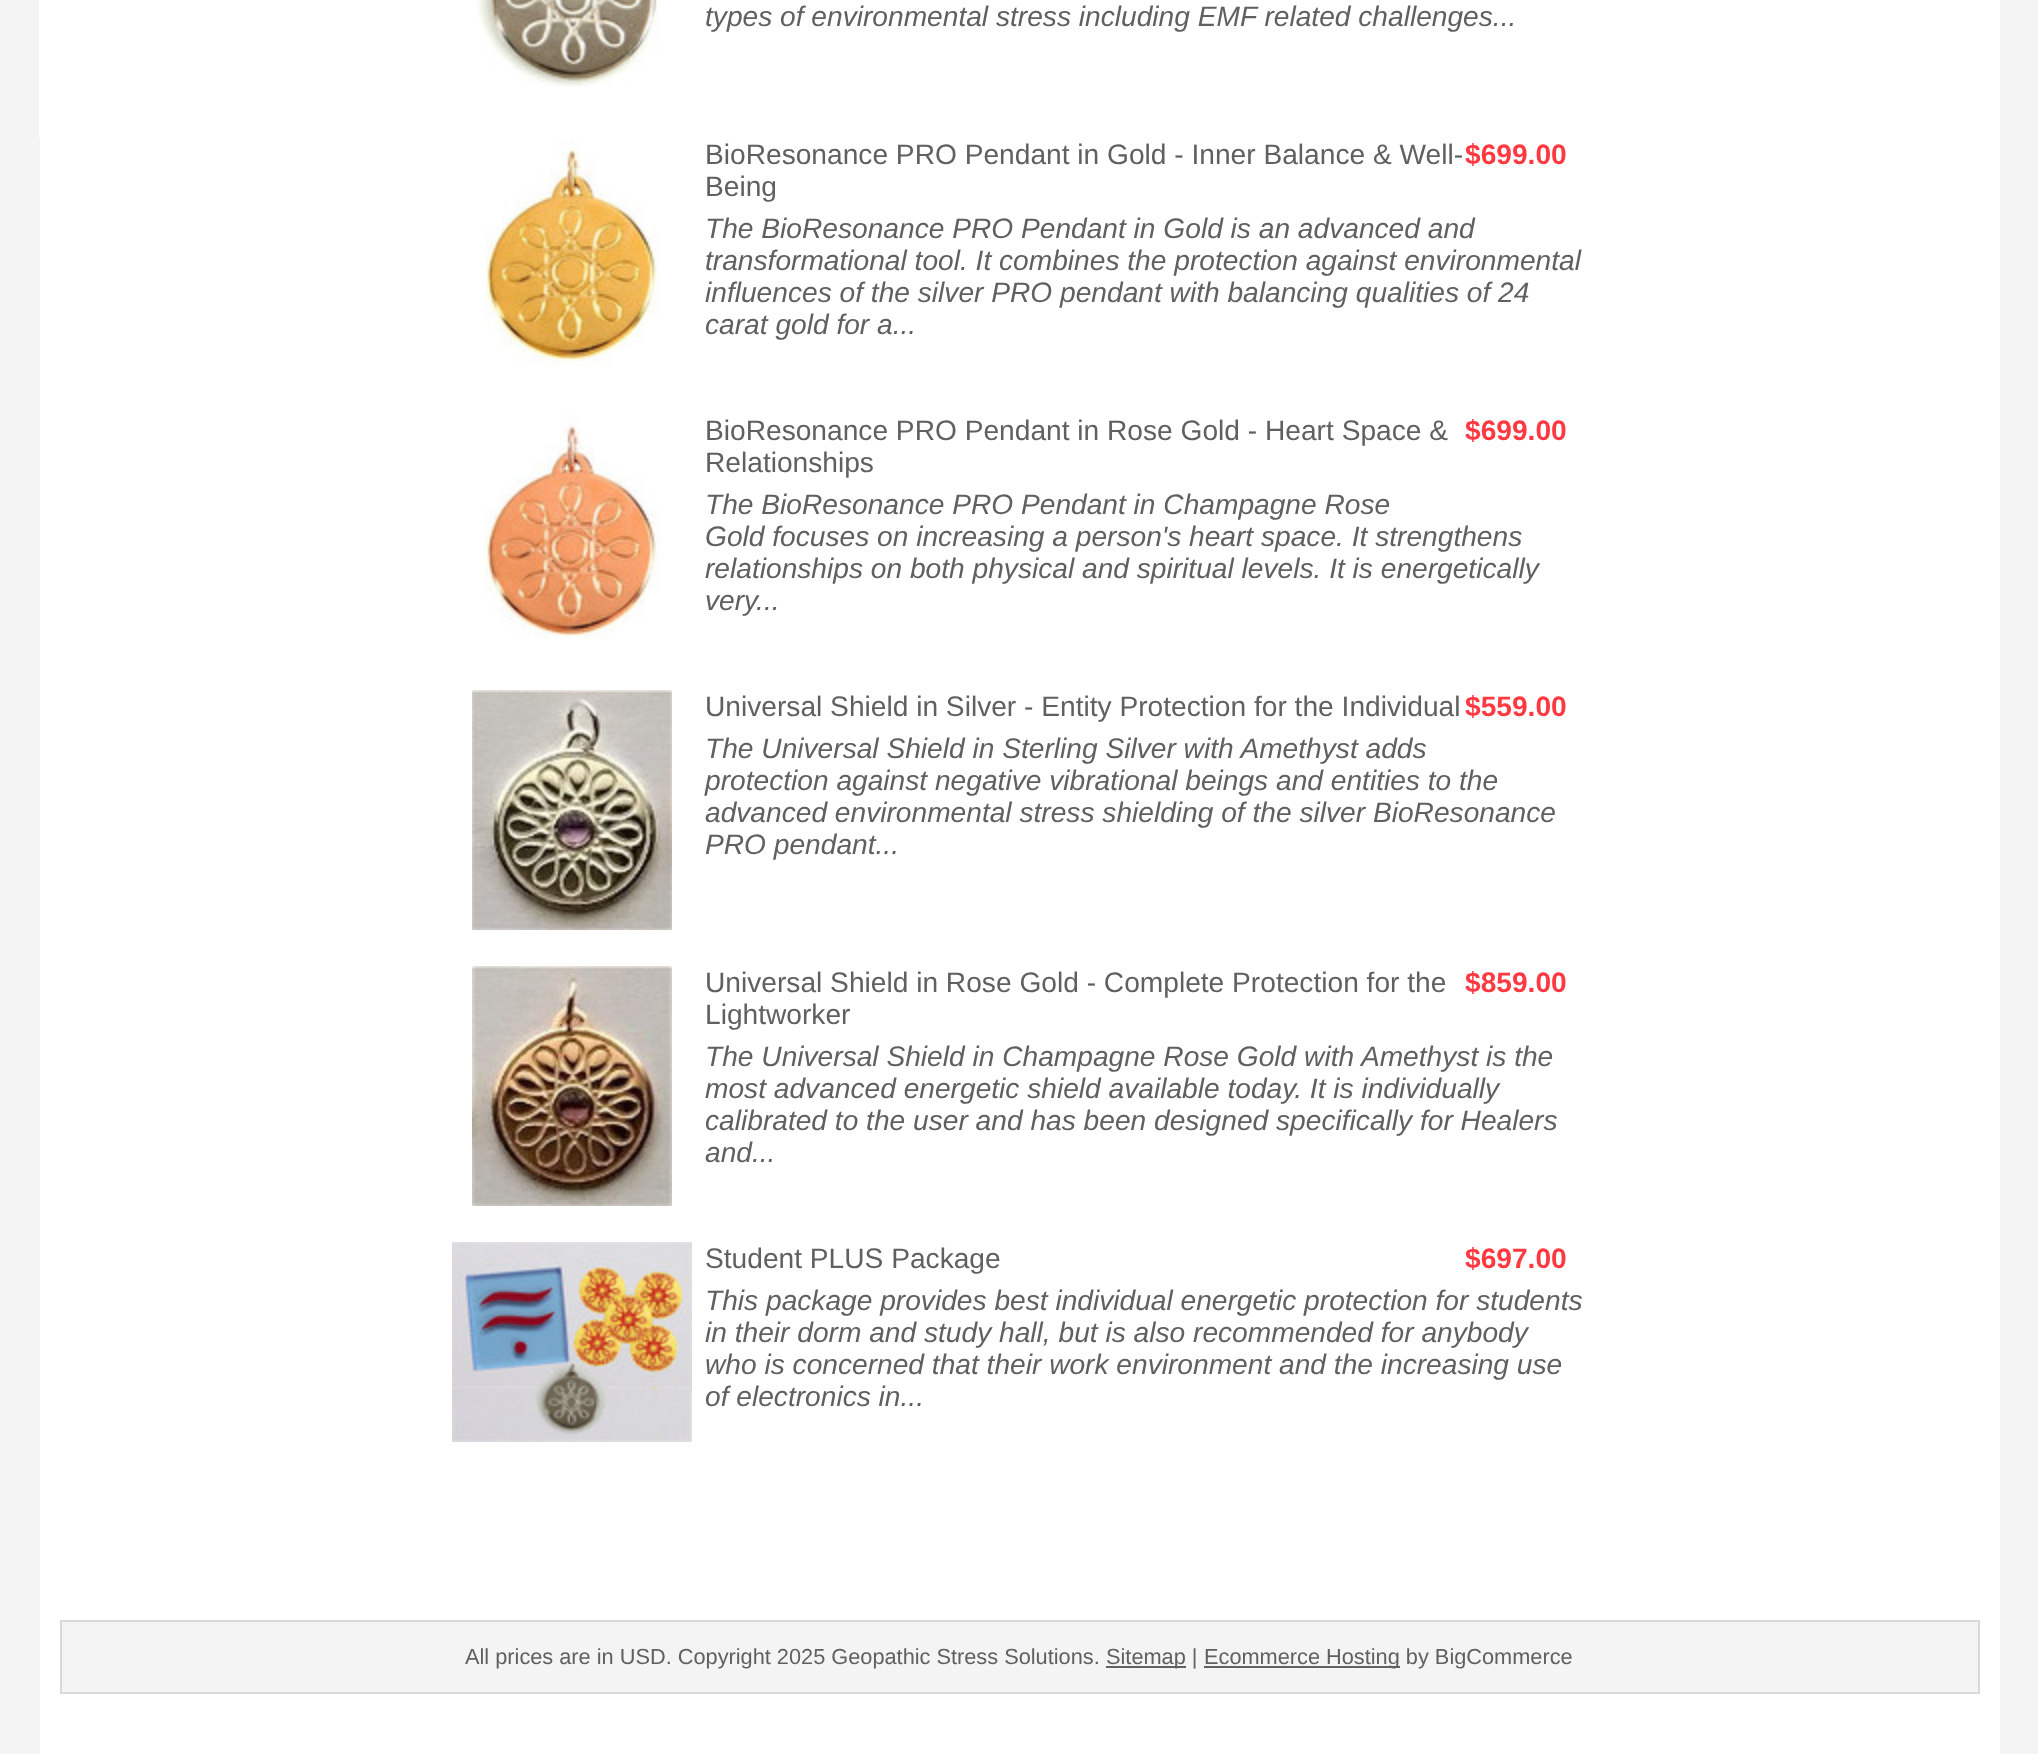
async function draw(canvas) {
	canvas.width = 2038;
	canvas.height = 1754;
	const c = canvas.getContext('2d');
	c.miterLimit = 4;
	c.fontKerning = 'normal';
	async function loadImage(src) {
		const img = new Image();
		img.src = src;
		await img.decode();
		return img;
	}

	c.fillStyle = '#f4f4f4';
	c.fillRect(0, 0, 2038, 1754);
	c.fillStyle = '#fff';
	c.fillRect(39, 0, 1, 138);
	c.fillRect(40, 0, 1960, 1754);
	c.drawImage(await loadImage('img1.png'), 476, 0, 184, 87);
	c.font = 'italic 28.15px Liberation Sans';
	c.fillStyle = '#606060';
	c.fillText('types of environmental stress including EMF related challenges...', 705, 26);
	c.drawImage(await loadImage('img2.png'), 484, 140, 176, 227);
	c.font = '28.15px Liberation Sans';
	c.fillText('BioResonance PRO Pendant in Gold - Inner Balance & Well-', 705, 164);
	c.font = 'bold 28.15px Liberation Sans';
	c.fillStyle = '#ff3941';
	c.fillText('$699.00', 1465, 164);
	c.font = '28.15px Liberation Sans';
	c.fillStyle = '#606060';
	c.fillText('Being', 705, 196);
	c.font = 'italic 28.15px Liberation Sans';
	for (const [text, x, y] of [
		['The BioResonance PRO Pendant in Gold is an advanced and', 705, 238],
		['transformational tool. It combines the protection against environmental', 705, 270],
		['influences of the silver PRO pendant with balancing qualities of 24', 705, 302],
		['carat gold for a...', 705, 334],
	]) {
		c.fillText(text, x, y);
	}
	c.drawImage(await loadImage('img3.png'), 484, 414, 176, 226);
	c.font = '28.15px Liberation Sans';
	c.fillText('BioResonance PRO Pendant in Rose Gold - Heart Space &', 705, 440);
	c.font = 'bold 28.15px Liberation Sans';
	c.fillStyle = '#ff3941';
	c.fillText('$699.00', 1465, 440);
	c.font = '28.15px Liberation Sans';
	c.fillStyle = '#606060';
	c.fillText('Relationships', 705, 472);
	c.font = 'italic 28.15px Liberation Sans';
	for (const [text, x, y] of [
		['The BioResonance PRO Pendant in Champagne Rose', 705, 514],
		['Gold focuses on increasing a person\'s heart space. It strengthens', 705, 546],
		['relationships on both physical and spiritual levels. It is energetically', 705, 578],
		['very...', 705, 610],
	]) {
		c.fillText(text, x, y);
	}
	c.drawImage(await loadImage('img4.png'), 472, 690, 200, 240);
	c.font = '28.15px Liberation Sans';
	c.fillText('Universal Shield in Silver - Entity Protection for the Individual', 705, 716);
	c.font = 'bold 28.15px Liberation Sans';
	c.fillStyle = '#ff3941';
	c.fillText('$559.00', 1465, 716);
	c.font = 'italic 28.15px Liberation Sans';
	c.fillStyle = '#606060';
	for (const [text, x, y] of [
		['The Universal Shield in Sterling Silver with Amethyst adds', 705, 758],
		['protection against negative vibrational beings and entities to the', 705, 790],
		['advanced environmental stress shielding of the silver BioResonance', 705, 822],
		['PRO pendant...', 705, 854],
	]) {
		c.fillText(text, x, y);
	}
	c.drawImage(await loadImage('img5.png'), 472, 966, 200, 240);
	c.font = '28.15px Liberation Sans';
	c.fillText('Universal Shield in Rose Gold - Complete Protection for the', 705, 992);
	c.font = 'bold 28.15px Liberation Sans';
	c.fillStyle = '#ff3941';
	c.fillText('$859.00', 1465, 992);
	c.font = '28.15px Liberation Sans';
	c.fillStyle = '#606060';
	c.fillText('Lightworker', 705, 1024);
	c.font = 'italic 28.15px Liberation Sans';
	for (const [text, x, y] of [
		['The Universal Shield in Champagne Rose Gold with Amethyst is the', 705, 1066],
		['most advanced energetic shield available today. It is individually', 705, 1098],
		['calibrated to the user and has been designed specifically for Healers', 705, 1130],
		['and...', 705, 1162],
	]) {
		c.fillText(text, x, y);
	}
	c.drawImage(await loadImage('img6.png'), 452, 1242, 240, 200);
	c.font = '28.15px Liberation Sans';
	c.fillText('Student PLUS Package', 705, 1268);
	c.font = 'bold 28.15px Liberation Sans';
	c.fillStyle = '#ff3941';
	c.fillText('$697.00', 1465, 1268);
	c.font = 'italic 28.15px Liberation Sans';
	c.fillStyle = '#606060';
	for (const [text, x, y] of [
		['This package provides best individual energetic protection for students', 705, 1310],
		['in their dorm and study hall, but is also recommended for anybody', 705, 1342],
		['who is concerned that their work environment and the increasing use', 705, 1374],
		['of electronics in...', 705, 1406],
	]) {
		c.fillText(text, x, y);
	}
	c.fillStyle = '#f4f4f4';
	c.beginPath();
	c.rect(61, 1621, 1918, 72);
	c.fill();
	c.strokeStyle = '#dadada';
	c.lineWidth = 2;
	c.stroke();
	c.font = '21.75px Liberation Sans';
	c.fillStyle = '#606060';
	c.fillText('All prices are in USD. Copyright 2025 Geopathic Stress Solutions.', 465, 1664);
	c.fillRect(1106, 1666, 80, 2);
	c.fillText('Sitemap |', 1106, 1664);
	c.fillRect(1204, 1666, 196, 2);
	c.fillText('Ecommerce Hosting by BigCommerce', 1204, 1664);
}

draw(document.querySelector('canvas'));
